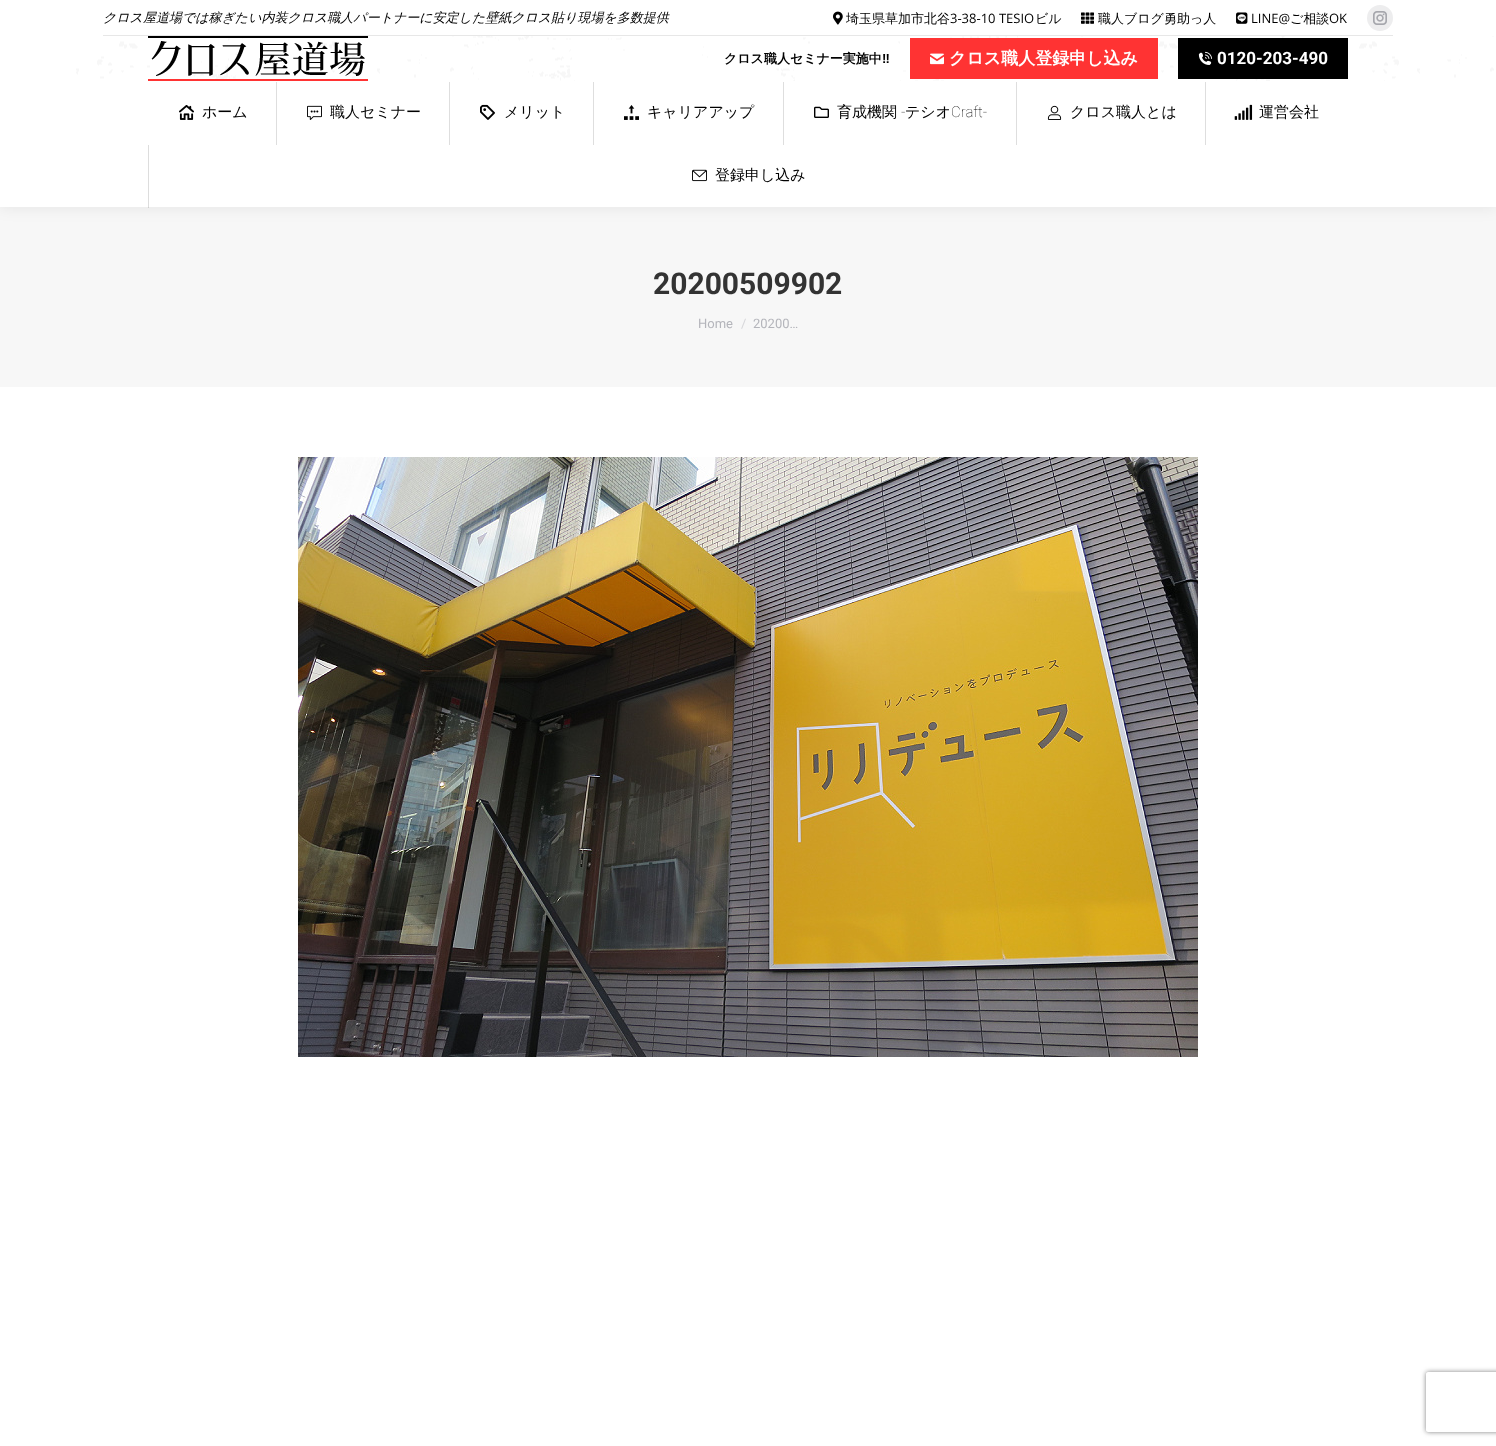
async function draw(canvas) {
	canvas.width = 1496;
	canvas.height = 1446;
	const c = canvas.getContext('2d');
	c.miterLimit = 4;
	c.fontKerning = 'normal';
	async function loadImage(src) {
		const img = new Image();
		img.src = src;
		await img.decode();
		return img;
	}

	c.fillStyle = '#fff';
	c.fillRect(0, 0, 1496, 1446);
	c.fillStyle = '#f7f7f7';
	c.fillRect(0, 207, 1496, 180);
	c.fillStyle = '#00000012';
	c.filter = 'blur(7.5px)';
	c.beginPath();
	c.rect(-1, -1, 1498, 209);
	c.fill();
	c.filter = 'none';
	c.fillStyle = '#fff';
	c.fillRect(0, 0, 1496, 207);
	c.drawImage(await loadImage('img1.png'), 76, 36, 1418, 45);
	c.font = 'italic 500 13px WenQuanYi Zen Hei';
	c.fillStyle = '#000';
	c.fillText('クロス屋道場では稼ぎたい内装クロス職人パートナーに安定した壁紙クロス貼り現場を多数提供', 103, 22);
	c.drawImage(await loadImage('img2.png'), 833, 11, 10, 14);
	c.font = '500 13px WenQuanYi Zen Hei';
	c.fillText('埼玉県草加市北谷', 846, 23);
	c.font = '13px Open Sans';
	c.fillText('3-38-10 TESIO', 950, 23);
	c.font = '500 13px WenQuanYi Zen Hei';
	c.fillText('ビル', 1035, 23);
	c.drawImage(await loadImage('img3.png'), 1081, 12, 13, 12);
	c.fillText('職人ブログ勇助っ人', 1098, 23);
	c.drawImage(await loadImage('img4.png'), 1236, 12, 12, 12);
	c.font = '13px Open Sans';
	c.fillText('LINE@', 1251, 23);
	c.font = '500 13px WenQuanYi Zen Hei';
	c.fillText('ご相談', 1290, 23);
	c.font = '13px Open Sans';
	c.fillText('OK', 1329, 23);
	c.fillStyle = '#ededee';
	c.beginPath();
	c.arc(1380, 18, 13, 0, 2 * Math.PI);
	c.fill();
	c.drawImage(await loadImage('img5.png'), 1373, 11, 14, 14);
	c.fillStyle = '#e7e7e7';
	c.fillRect(103, 35, 1290, 1);
	c.drawImage(await loadImage('img6.png'), 148, 36, 220, 45);
	c.font = 'bold 13px WenQuanYi Zen Hei';
	c.fillStyle = '#000';
	c.fillText('クロス職人セミナー実施中', 724, 63);
	c.font = 'bold 13px Liberation Sans';
	c.fillText('‼', 882, 63);
	c.fillStyle = '#f33';
	c.fillRect(910, 38, 248, 41);
	c.drawImage(await loadImage('img7.png'), 930, 53, 14, 12);
	c.font = 'bold 17px WenQuanYi Zen Hei';
	c.fillStyle = '#fff';
	c.fillText('クロス職人登録申し込み', 949, 64);
	c.fillStyle = '#000';
	c.fillRect(1178, 38, 170, 41);
	c.drawImage(await loadImage('img8.png'), 1198, 51, 14, 14);
	c.font = 'bold 17px Roboto';
	c.fillStyle = '#fff';
	c.fillText('0120-203-490', 1217, 64);
	c.drawImage(await loadImage('img9.png'), 179, 105, 15, 15);
	c.font = '500 15px WenQuanYi Zen Hei';
	c.fillStyle = '#000';
	c.fillText('ホーム', 202, 117);
	c.fillStyle = '#dedede';
	c.fillRect(276, 82, 1, 63);
	c.drawImage(await loadImage('img10.png'), 307, 105, 15, 15);
	c.fillStyle = '#000';
	c.fillText('職人セミナー', 330, 117);
	c.fillStyle = '#dedede';
	c.fillRect(449, 82, 1, 63);
	c.drawImage(await loadImage('img11.png'), 480, 104, 15, 16);
	c.fillStyle = '#000';
	c.fillText('メリット', 504, 117);
	c.fillStyle = '#dedede';
	c.fillRect(593, 82, 1, 63);
	c.drawImage(await loadImage('img12.png'), 624, 105, 15, 15);
	c.fillStyle = '#000';
	c.fillText('キャリアアップ', 647, 117);
	c.fillStyle = '#dedede';
	c.fillRect(783, 82, 1, 63);
	c.drawImage(await loadImage('img13.png'), 814, 106, 15, 12);
	c.fillStyle = '#000';
	c.fillText('育成機関', 837, 117);
	c.font = '100 15px Roboto';
	c.fillText('-', 901, 117);
	c.font = '500 15px WenQuanYi Zen Hei';
	c.fillText('テシオ', 905, 117);
	c.font = '100 15px Roboto';
	c.fillText('Craft-', 951, 117);
	c.fillStyle = '#dedede';
	c.fillRect(1016, 82, 1, 63);
	c.drawImage(await loadImage('img14.png'), 1047, 105, 15, 15);
	c.font = '500 15px WenQuanYi Zen Hei';
	c.fillStyle = '#000';
	c.fillText('クロス職人とは', 1070, 117);
	c.fillStyle = '#dedede';
	c.fillRect(1205, 82, 1, 63);
	c.drawImage(await loadImage('img15.png'), 1234, 104, 19, 16);
	c.fillStyle = '#000';
	c.fillText('運営会社', 1259, 117);
	c.fillStyle = '#11111124';
	c.fillRect(148, 145, 1, 63);
	c.drawImage(await loadImage('img16.png'), 692, 169, 15, 13);
	c.fillStyle = '#000';
	c.fillText('登録申し込み', 715, 180);
	c.font = 'bold 30px Roboto';
	c.fillStyle = '#333';
	c.fillText('20200509902', 653, 294);
	c.font = '13px Roboto';
	c.fillStyle = '#b4b5bb';
	c.fillText('Home', 698, 328);
	c.fillStyle = '#d6d6d9';
	c.fillText('/', 741, 328);
	c.fillStyle = '#b4b5bb';
	c.fillText('20200…', 753, 328);
	c.drawImage(await loadImage('img17.png'), 298, 457, 900, 600);
	c.save();
	c.beginPath();
	c.moveTo(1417, 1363);
	c.lineTo(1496, 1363);
	c.lineTo(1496, 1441);
	c.lineTo(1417, 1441);
	c.closePath();
	c.moveTo(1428, 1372);
	c.lineTo(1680, 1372);
	c.bezierCurveTo(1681, 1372, 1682, 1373, 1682, 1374);
	c.lineTo(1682, 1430);
	c.bezierCurveTo(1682, 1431, 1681, 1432, 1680, 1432);
	c.lineTo(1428, 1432);
	c.bezierCurveTo(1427, 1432, 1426, 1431, 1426, 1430);
	c.lineTo(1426, 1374);
	c.bezierCurveTo(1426, 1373, 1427, 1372, 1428, 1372);
	c.closePath();
	c.clip('evenodd');
	c.fillStyle = '#808080';
	c.filter = 'blur(2.5px)';
	c.beginPath();
	c.roundRect(1426, 1372, 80, 60, 2);
	c.fill();
	c.filter = 'none';
	c.restore();
}

draw(document.querySelector('canvas'));
